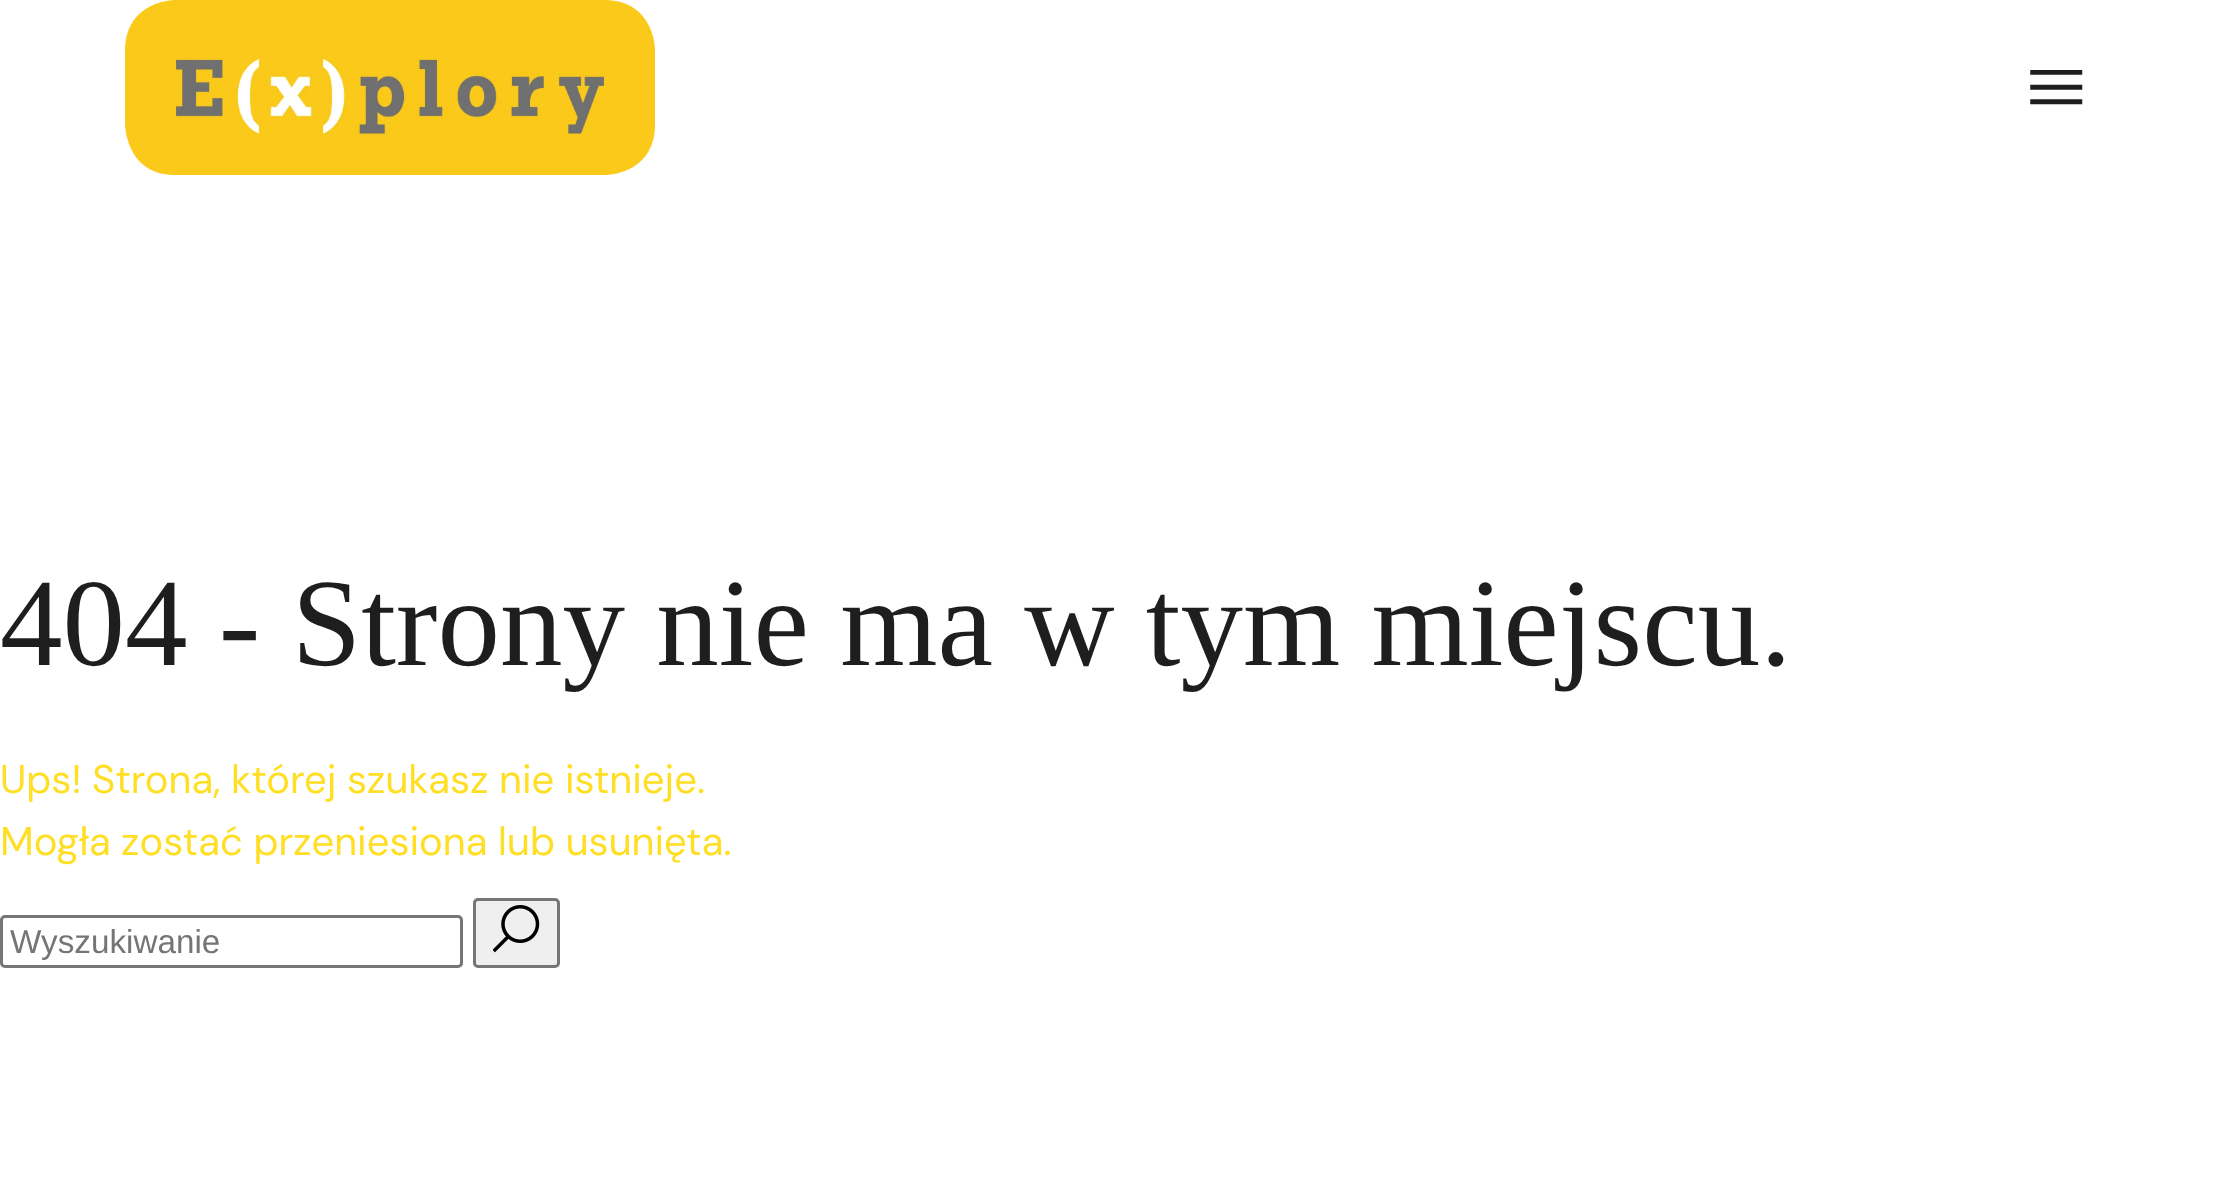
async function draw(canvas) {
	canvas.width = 2214;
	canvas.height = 1186;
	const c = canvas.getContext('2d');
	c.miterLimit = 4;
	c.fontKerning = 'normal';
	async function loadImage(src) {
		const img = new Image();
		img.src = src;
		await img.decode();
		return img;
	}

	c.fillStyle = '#fff';
	c.fillRect(0, 0, 2214, 1186);
	c.drawImage(await loadImage('img1.png'), 125, 0, 530, 175);
	c.save();
	c.beginPath();
	c.rect(2030, 70, 53, 35);
	c.clip();
	c.beginPath();
	c.moveTo(2081, 71);
	c.lineTo(2081, 73.5);
	c.lineTo(2031.5, 73.5);
	c.lineTo(2031.5, 71);
	c.closePath();
	c.strokeStyle = '#1e1e1e';
	c.lineWidth = 2.5;
	c.stroke();
	c.restore();
	c.beginPath();
	c.moveTo(2081, 86);
	c.lineTo(2081, 88.5);
	c.lineTo(2031.5, 88.5);
	c.lineTo(2031.5, 86);
	c.closePath();
	c.moveTo(2081, 100.5);
	c.lineTo(2081, 103);
	c.lineTo(2031.5, 103);
	c.lineTo(2031.5, 100.5);
	c.closePath();
	c.strokeStyle = '#1e1e1e';
	c.lineWidth = 2.5;
	c.stroke();
	c.font = '125px Liberation Serif';
	c.fillStyle = '#1e1e1e';
	c.fillText('404 - Strony nie ma w tym miejscu.', 0, 665);
	c.font = '40px DM Sans';
	c.fillStyle = '#ffde23';
	c.fillText('Ups! Strona, której szukasz nie istnieje.', 0, 793);
	c.fillText('Mogła zostać przeniesiona lub usunięta.', 0, 855);
	c.beginPath();
	c.roundRect(1.5, 916.5, 460, 50, 3.5);
	c.strokeStyle = '#767676';
	c.lineWidth = 3;
	c.stroke();
	c.font = '33.25px Liberation Sans';
	c.fillStyle = '#757575';
	c.fillText('Wyszukiwanie', 10, 953);
	c.fillStyle = '#efefef';
	c.beginPath();
	c.roundRect(474.5, 899.5, 84, 67, 3.5);
	c.fill();
	c.stroke();
	c.drawImage(await loadImage('img2.png'), 493, 905, 47, 48);
}

draw(document.querySelector('canvas'));
